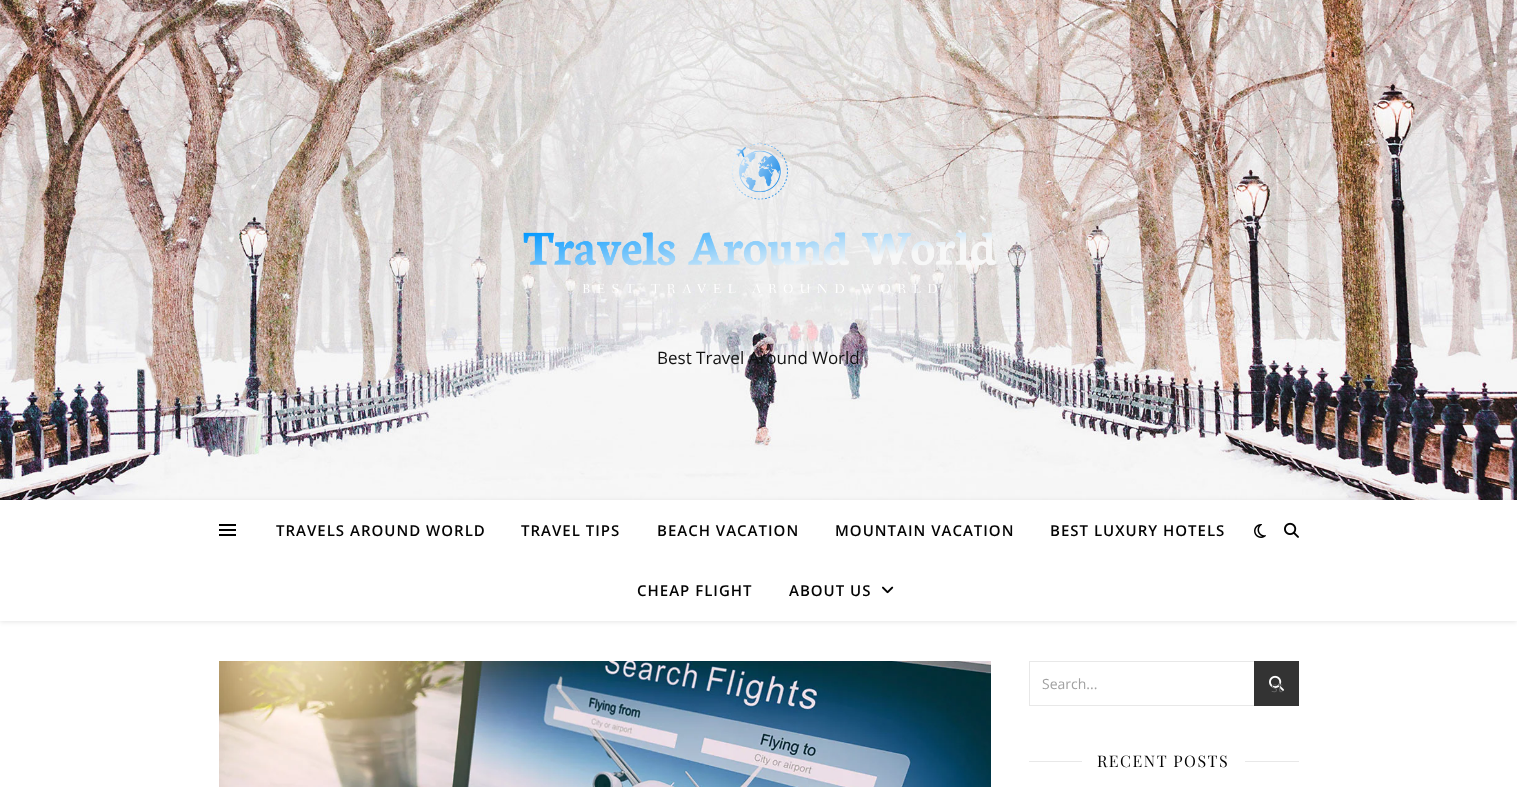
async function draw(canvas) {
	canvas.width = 1517;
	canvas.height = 787;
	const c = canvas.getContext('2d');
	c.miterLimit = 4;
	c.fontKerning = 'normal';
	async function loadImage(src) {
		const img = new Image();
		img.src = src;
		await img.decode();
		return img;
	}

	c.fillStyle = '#fff';
	c.fillRect(0, 0, 1517, 787);
	c.drawImage(await loadImage('img1.png'), 0, 0, 1517, 500);
	c.drawImage(await loadImage('img2.png'), 523, 143, 473, 150);
	c.font = '17px Open Sans';
	c.fillStyle = '#111';
	c.fillText('Best Travel Around World', 657, 364);
	c.save();
	c.beginPath();
	c.moveTo(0, 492);
	c.lineTo(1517, 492);
	c.lineTo(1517, 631);
	c.lineTo(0, 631);
	c.closePath();
	c.moveTo(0, 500);
	c.lineTo(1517, 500);
	c.lineTo(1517, 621);
	c.lineTo(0, 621);
	c.closePath();
	c.clip('evenodd');
	c.fillStyle = '#0000001a';
	c.filter = 'blur(2.5px)';
	c.beginPath();
	c.rect(0, 501, 1517, 121);
	c.fill();
	c.filter = 'none';
	c.restore();
	for (const [x, y, w, h, color] of [
		[219, 524, 17, 2, '#000'],
		[219, 529, 17, 2, '#000'],
		[219, 534, 17, 2, '#000'],
	]) {
		c.fillStyle = color;
		c.fillRect(x, y, w, h);
	}
	c.letterSpacing = '1px';
	c.font = '600 15px Open Sans';
	c.fillStyle = '#030303';
	for (const [text, x, y] of [
		['TRAVELS AROUND WORLD', 276, 536],
		['TRAVEL TIPS', 521, 536],
		['BEACH VACATION', 657, 536],
		['MOUNTAIN VACATION', 835, 536],
		['BEST LUXURY HOTELS', 1050, 536],
		['CHEAP FLIGHT', 637, 596],
		['ABOUT US', 789, 596],
	]) {
		c.fillText(text, x, y);
	}
	c.drawImage(await loadImage('img3.png'), 882, 586, 12, 8);
	c.drawImage(await loadImage('img4.png'), 1254, 524, 12, 14);
	c.drawImage(await loadImage('img5.png'), 1284, 522, 15, 16);
	c.drawImage(await loadImage('img6.png'), 219, 661, 772, 126);
	c.strokeStyle = '#e8e8e8';
	c.strokeRect(1029.5, 661.5, 269, 44);
	c.letterSpacing = '0px';
	c.font = '14px Open Sans';
	c.fillStyle = '#a1a1a1';
	c.fillText('Search...', 1042, 689);
	c.fillStyle = '#333';
	c.fillRect(1254, 661, 45, 45);
	c.drawImage(await loadImage('img7.png'), 1269, 675, 15, 16);
	c.fillStyle = '#636363';
	c.fillText('st', 1271, 692);
	c.fillStyle = '#e8e8e8';
	c.fillRect(1029, 761, 53, 1);
	c.letterSpacing = '1.5px';
	c.font = '16px Playfair Display';
	c.fillStyle = '#030303';
	c.fillText('RECENT POSTS', 1097, 767);
	c.fillStyle = '#e8e8e8';
	c.fillRect(1245, 761, 54, 1);
}

draw(document.querySelector('canvas'));
